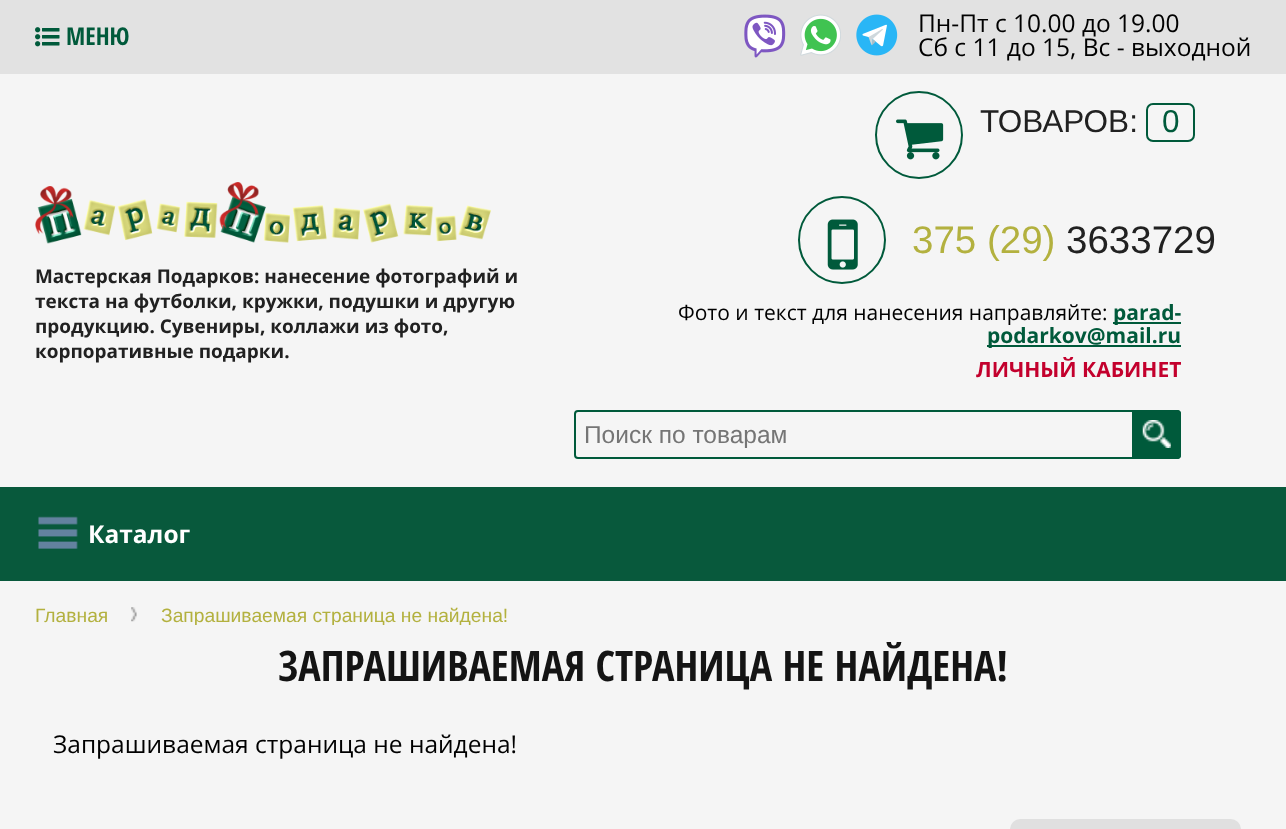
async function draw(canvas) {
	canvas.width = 1286;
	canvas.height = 829;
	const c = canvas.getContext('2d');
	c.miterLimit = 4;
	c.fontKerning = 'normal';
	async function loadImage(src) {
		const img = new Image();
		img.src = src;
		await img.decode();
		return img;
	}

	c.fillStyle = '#f5f5f5';
	c.fillRect(0, 0, 1286, 829);
	c.fillStyle = '#e2e2e2';
	c.fillRect(0, 0, 1286, 74);
	c.drawImage(await loadImage('img1.png'), 35, 27, 25, 20);
	c.font = 'bold 24.5px Open Sans Condensed';
	c.fillStyle = '#005a3b';
	c.fillText('МЕНЮ', 66, 45);
	c.drawImage(await loadImage('img2.png'), 744, 14, 42, 44);
	c.drawImage(await loadImage('img3.png'), 800, 14, 41, 42);
	c.drawImage(await loadImage('img4.png'), 856, 14, 42, 42);
	c.font = '24.5px Open Sans';
	c.fillStyle = '#000';
	c.fillText('Пн-Пт с 10.00 до 19.00', 918, 32);
	c.fillText('Сб с 11 до 15, Вс - выходной', 918, 56);
	c.drawImage(await loadImage('img5.png'), 35, 182, 456, 62);
	c.font = 'bold 18.95px Open Sans';
	c.fillStyle = '#212121';
	for (const [text, x, y] of [
		['Мастерская Подарков: нанесение фотографий и', 35, 283],
		['текста на футболки, кружки, подушки и другую', 35, 308],
		['продукцию. Сувениры, коллажи из фото,', 35, 333],
		['корпоративные подарки.', 35, 358],
	]) {
		c.fillText(text, x, y);
	}
	c.beginPath();
	c.arc(919, 135, 43, 0, 2 * Math.PI);
	c.strokeStyle = '#005a3b';
	c.lineWidth = 2;
	c.stroke();
	c.drawImage(await loadImage('img6.png'), 896, 119, 48, 41);
	c.font = '31.5px Liberation Sans';
	c.fillText('ТОВАРОВ:', 980, 132);
	c.beginPath();
	c.roundRect(1147, 104, 47, 37, 6);
	c.stroke();
	c.fillStyle = '#005a3b';
	c.fillText('0', 1162, 132);
	c.beginPath();
	c.arc(842, 240, 43, 0, 2 * Math.PI);
	c.stroke();
	c.drawImage(await loadImage('img7.png'), 827, 219, 31, 51);
	c.font = '38.5px Liberation Sans';
	c.fillStyle = '#b3b13f';
	c.fillText('375 (29)', 912, 253);
	c.fillStyle = '#212121';
	c.fillText('3633729', 1066, 253);
	c.font = '21px Open Sans';
	c.fillStyle = '#000';
	c.fillText('Фото и текст для нанесения направляйте:', 678, 320);
	c.fillStyle = '#005a3b';
	c.fillRect(1113, 322, 68, 2);
	c.font = 'bold 21px Open Sans';
	c.fillText('parad-', 1113, 320);
	c.fillRect(987, 345, 194, 2);
	c.fillText('podarkov@mail.ru', 987, 343);
	c.fillStyle = '#c3002d';
	c.fillText('ЛИЧНЫЙ КАБИНЕТ', 976, 377);
	c.beginPath();
	c.roundRect(575, 411, 605, 47, 3);
	c.stroke();
	c.font = '24.5px Liberation Sans';
	c.fillStyle = '#757575';
	c.fillText('Поиск по товарам', 584, 443);
	c.fillStyle = '#005a3b';
	c.beginPath();
	c.roundRect(1132, 410, 49, 49, [0, 4, 4, 0]);
	c.fill();
	c.drawImage(await loadImage('img8.png'), 1142, 420, 29, 28);
	c.fillStyle = '#08593c';
	c.fillRect(0, 487, 1286, 94);
	c.drawImage(await loadImage('img9.png'), 38, 516, 40, 33);
	c.font = 'bold 24.5px Open Sans';
	c.fillStyle = '#fff';
	c.fillText('Каталог', 88, 543);
	c.font = '19.25px Liberation Sans';
	c.fillStyle = '#b3b13f';
	c.fillText('Главная', 35, 622);
	c.drawImage(await loadImage('img10.png'), 131, 607, 6, 15);
	c.save();
	c.beginPath();
	c.rect(0, 600, 1286, 25);
	c.clip();
	c.fillText('Запрашиваемая страница не найдена!', 161, 622);
	c.restore();
	c.font = 'bold 42px Open Sans Condensed';
	c.fillStyle = '#141414';
	c.fillText('ЗАПРАШИВАЕМАЯ СТРАНИЦА НЕ НАЙДЕНА!', 278, 681);
	c.font = '24.5px Open Sans';
	c.fillStyle = '#000';
	c.fillText('Запрашиваемая страница не найдена!', 53, 753);
	c.fillStyle = '#e0e0e0';
	c.beginPath();
	c.roundRect(1010, 819, 231, 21, 11);
	c.fill();
}

draw(document.querySelector('canvas'));
